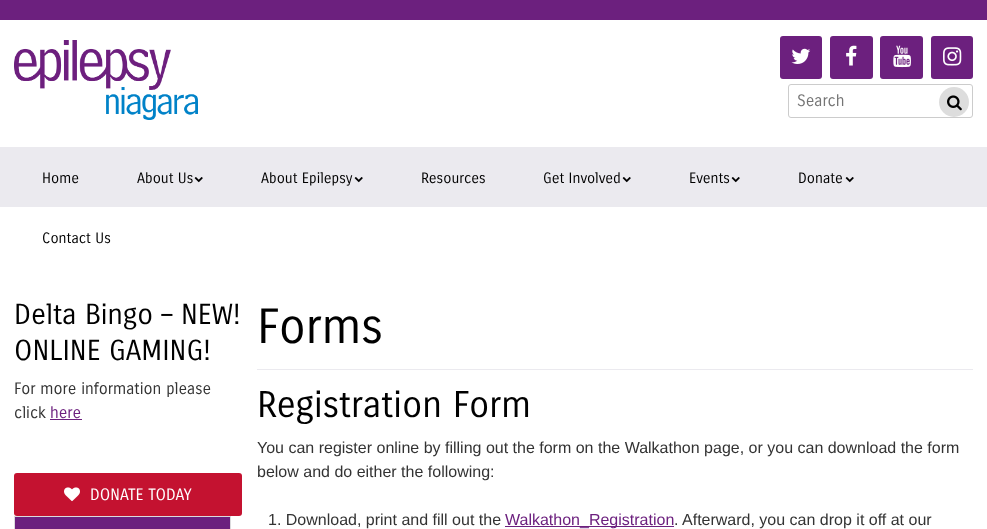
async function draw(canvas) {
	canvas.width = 987;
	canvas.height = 529;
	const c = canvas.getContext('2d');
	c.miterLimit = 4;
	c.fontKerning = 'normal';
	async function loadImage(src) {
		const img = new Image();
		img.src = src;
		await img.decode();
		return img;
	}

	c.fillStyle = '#fff';
	c.fillRect(0, 0, 987, 529);
	c.fillStyle = '#6c207e';
	c.fillRect(0, 0, 987, 20);
	c.drawImage(await loadImage('img1.png'), 14, 40, 184, 80);
	c.beginPath();
	c.roundRect(780, 36, 42, 43, 3);
	c.fill();
	c.drawImage(await loadImage('img2.png'), 791, 48, 20, 16);
	c.beginPath();
	c.roundRect(830, 36, 43, 43, 3);
	c.fill();
	c.drawImage(await loadImage('img3.png'), 846, 45, 11, 21);
	c.beginPath();
	c.roundRect(880, 36, 43, 43, 3);
	c.fill();
	c.drawImage(await loadImage('img4.png'), 893, 45, 18, 23);
	c.beginPath();
	c.roundRect(931, 36, 42, 43, 3);
	c.fill();
	c.drawImage(await loadImage('img5.png'), 943, 47, 19, 19);
	c.beginPath();
	c.roundRect(788.5, 84.5, 184, 33, 2.5);
	c.strokeStyle = '#ccc';
	c.stroke();
	c.font = '16px Carrois Gothic';
	c.fillStyle = '#757575';
	c.fillText('Search', 797, 106);
	c.fillStyle = '#ddd';
	c.beginPath();
	c.arc(954, 102, 15, 0, 2 * Math.PI);
	c.fill();
	c.drawImage(await loadImage('img6.png'), 947, 95, 15, 16);
	c.fillStyle = '#ebeaef';
	c.fillRect(0, 147, 987, 60);
	c.font = '14.5px Carrois Gothic';
	c.fillStyle = '#000';
	c.fillText('Home', 42, 183);
	c.fillText('About Us', 137, 183);
	c.drawImage(await loadImage('img7.png'), 194, 177, 9, 6);
	c.fillText('About Epilepsy', 261, 183);
	c.drawImage(await loadImage('img7.png'), 354, 177, 9, 6);
	c.fillText('Resources', 421, 183);
	c.fillText('Get Involved', 543, 183);
	c.drawImage(await loadImage('img7.png'), 622, 177, 9, 6);
	c.fillText('Events', 689, 183);
	c.drawImage(await loadImage('img7.png'), 731, 177, 9, 6);
	c.fillText('Donate', 798, 183);
	c.drawImage(await loadImage('img7.png'), 845, 177, 9, 6);
	c.fillText('Contact Us', 42, 243);
	c.font = '28px Carrois Gothic';
	c.fillText('Delta Bingo – NEW!', 14, 324);
	c.fillText('ONLINE GAMING!', 14, 360);
	c.font = '16px Carrois Gothic';
	c.fillStyle = '#333';
	c.fillText('For more information please', 14, 394);
	c.fillText('click', 14, 418);
	c.fillStyle = '#6c207e';
	c.fillText('here', 50, 418);
	c.fillRect(50, 419, 32, 1);
	c.fillStyle = '#c41230';
	c.beginPath();
	c.roundRect(14, 473, 228, 43, 3);
	c.fill();
	c.drawImage(await loadImage('img8.png'), 64, 487, 16, 15);
	c.fillStyle = '#fff';
	c.fillText('DONATE TODAY', 90, 500);
	c.fillStyle = '#6c207e';
	c.beginPath();
	c.rect(14.5, 516.5, 216, 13);
	c.fill();
	c.strokeStyle = '#dbdbdd';
	c.stroke();
	c.fillStyle = '#ebeaef';
	c.fillRect(257, 369, 716, 1);
	c.font = '48px Carrois Gothic';
	c.fillStyle = '#000';
	c.fillText('Forms', 257, 343);
	c.font = '36px Carrois Gothic';
	c.fillText('Registration Form', 257, 417);
	c.font = '16px Liberation Sans';
	c.fillStyle = '#333';
	for (const [text, x, y] of [
		['You can register online by filling out the form on the Walkathon page, or you can download the form', 257, 453],
		['below and do either the following:', 257, 477],
		['1. Download, print and fill out the', 268, 525],
	]) {
		c.fillText(text, x, y);
	}
	c.fillStyle = '#6c207e';
	c.fillRect(505, 526, 169, 1);
	c.fillText('Walkathon_Registration', 505, 525);
	c.fillStyle = '#333';
	c.fillText('. Afterward, you can drop it off at our', 674, 525);
}

draw(document.querySelector('canvas'));
